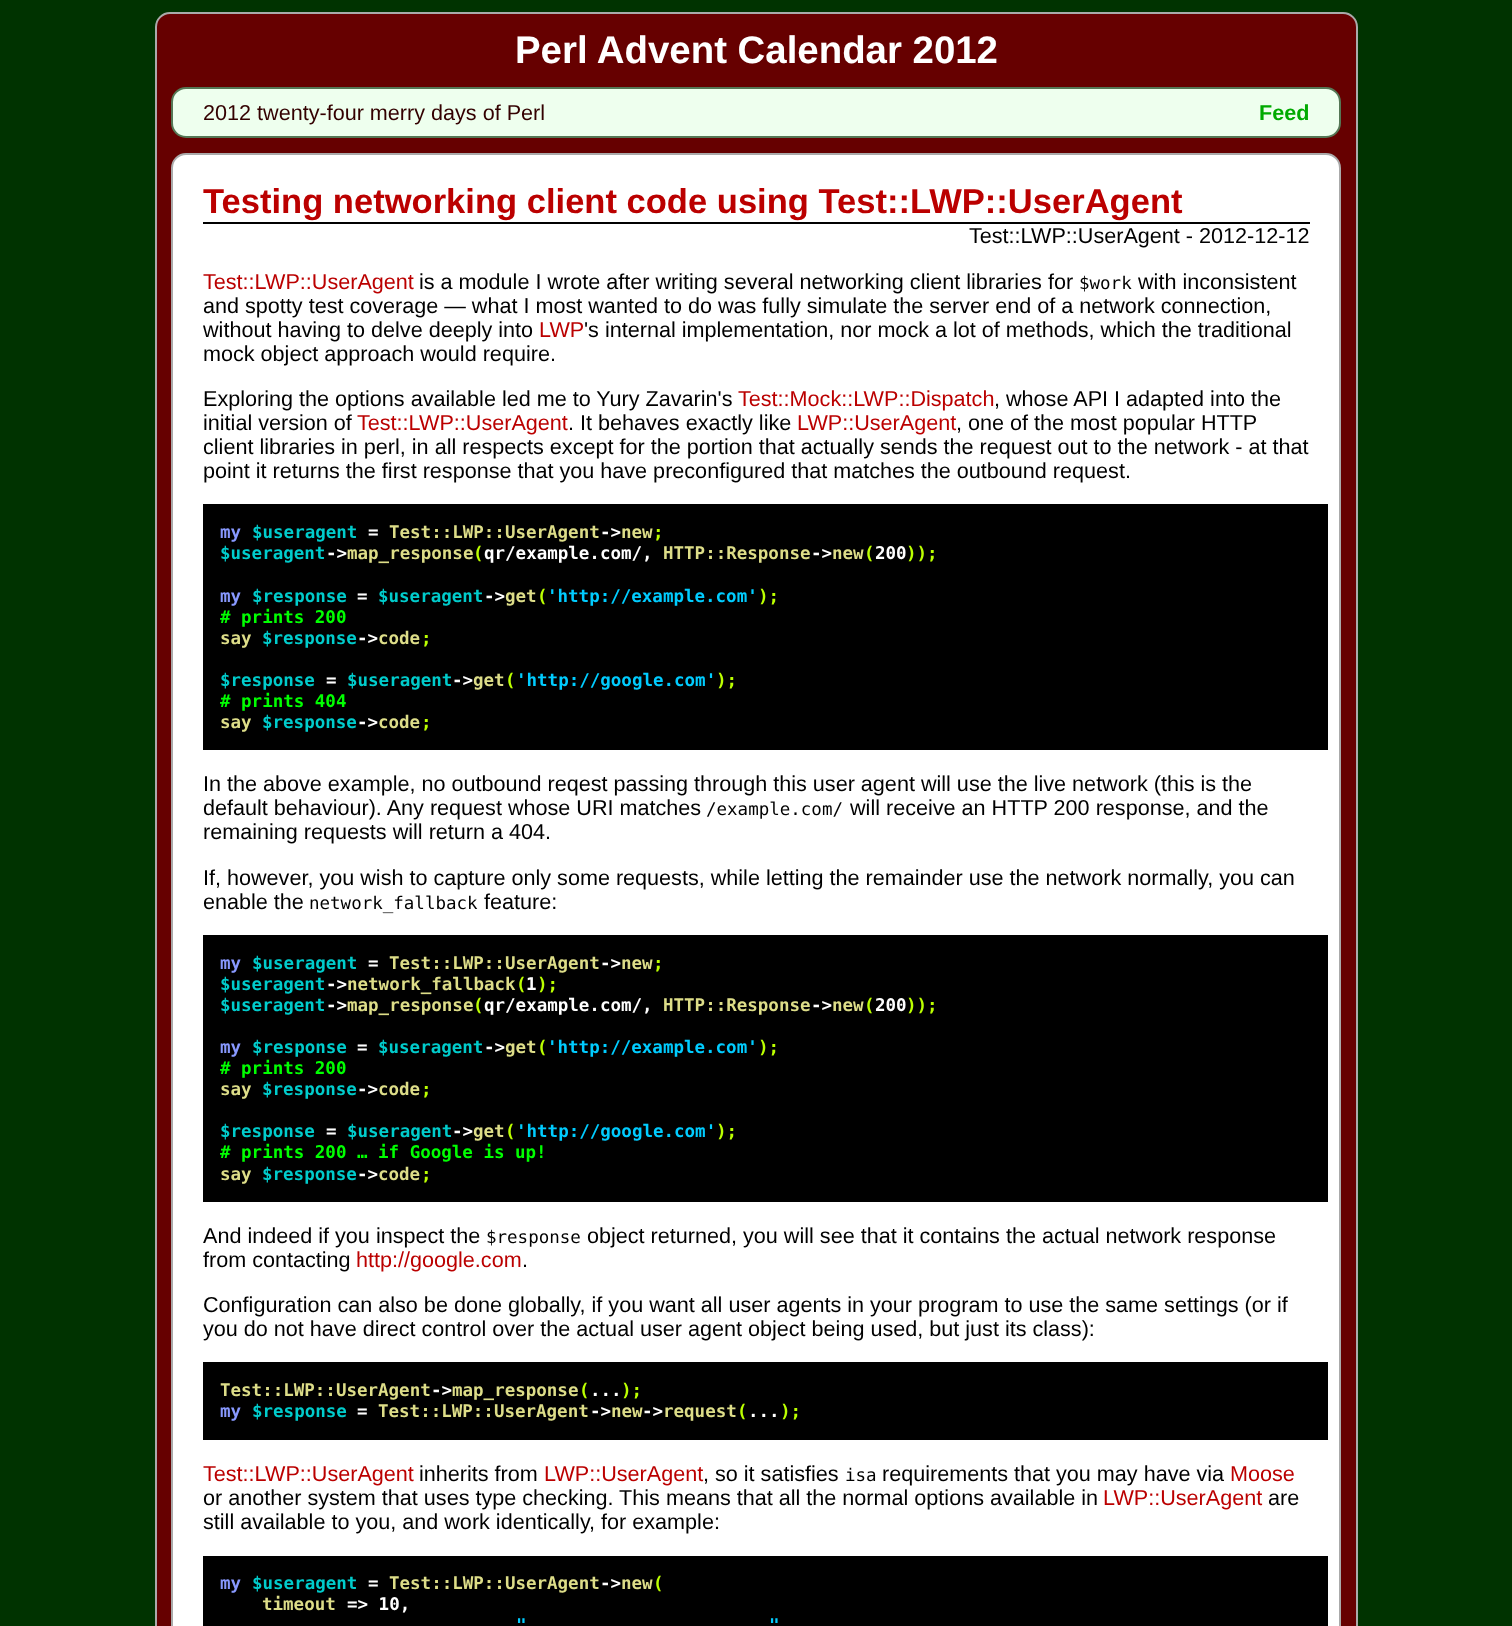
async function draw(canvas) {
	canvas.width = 1512;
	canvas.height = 1626;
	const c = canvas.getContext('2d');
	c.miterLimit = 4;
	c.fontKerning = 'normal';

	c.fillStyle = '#030';
	c.fillRect(0, 0, 1512, 1626);
	c.fillStyle = '#600';
	c.beginPath();
	c.roundRect(156, 13, 1201, 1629, 14);
	c.fill();
	c.strokeStyle = '#aaa';
	c.lineWidth = 2;
	c.stroke();
	c.font = 'bold 38.4px Liberation Sans';
	c.fillStyle = '#fff';
	c.fillText('Perl Advent Calendar 2012', 515, 63);
	c.fillStyle = '#efe';
	c.beginPath();
	c.roundRect(172, 88, 1168, 49, 14);
	c.fill();
	c.strokeStyle = '#575';
	c.stroke();
	c.font = '21.6px Liberation Sans';
	c.fillStyle = '#300';
	c.fillText('2012 twenty-four merry days of Perl', 203, 120);
	c.font = 'bold 21.6px Liberation Sans';
	c.fillStyle = '#0a0';
	c.fillText('Feed', 1259, 120);
	c.fillStyle = '#fff';
	c.beginPath();
	c.roundRect(172, 154, 1168, 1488, 14);
	c.fill();
	c.strokeStyle = '#aaa';
	c.stroke();
	c.font = 'bold 34.55px Liberation Sans';
	c.fillStyle = '#b00';
	c.fillText('Testing networking client code using Test::LWP::UserAgent', 203, 213);
	c.fillStyle = '#000';
	c.fillRect(203, 222, 1107, 2);
	c.font = '21.6px Liberation Sans';
	c.fillText('Test::LWP::UserAgent - 2012-12-12', 969, 243);
	c.fillStyle = '#b00';
	c.fillText('Test::LWP::UserAgent', 203, 289);
	c.fillStyle = '#000';
	c.fillText('is a module I wrote after writing several networking client libraries for', 419, 289);
	c.font = '17.5px DejaVu Sans Mono';
	c.fillText('$work', 1079, 289);
	c.font = '21.6px Liberation Sans';
	for (const [text, x, y] of [
		['with inconsistent', 1138, 289],
		['and spotty test coverage — what I most wanted to do was fully simulate the server end of a network connection,', 203, 313],
		['without having to delve deeply into', 203, 337],
	]) {
		c.fillText(text, x, y);
	}
	c.fillStyle = '#b00';
	c.fillText('LWP', 539, 337);
	c.fillStyle = '#000';
	for (const [text, x, y] of [
		['\'s internal implementation, nor mock a lot of methods, which the traditional', 584, 337],
		['mock object approach would require.', 203, 361],
		['Exploring the options available led me to Yury Zavarin\'s', 203, 406],
	]) {
		c.fillText(text, x, y);
	}
	c.fillStyle = '#b00';
	c.fillText('Test::Mock::LWP::Dispatch', 738, 406);
	c.fillStyle = '#000';
	c.fillText(', whose API I adapted into the', 994, 406);
	c.fillText('initial version of', 203, 430);
	c.fillStyle = '#b00';
	c.fillText('Test::LWP::UserAgent', 357, 430);
	c.fillStyle = '#000';
	c.fillText('. It behaves exactly like', 568, 430);
	c.fillStyle = '#b00';
	c.fillText('LWP::UserAgent', 797, 430);
	c.fillStyle = '#000';
	for (const [text, x, y] of [
		[', one of the most popular HTTP', 956, 430],
		['client libraries in perl, in all respects except for the portion that actually sends the request out to the network - at that', 203, 454],
		['point it returns the first response that you have preconfigured that matches the outbound request.', 203, 478],
	]) {
		c.fillText(text, x, y);
	}
	c.fillRect(203, 504, 1125, 246);
	c.font = 'bold 17.5px DejaVu Sans Mono';
	c.fillStyle = '#89f';
	c.fillText('my', 220, 538);
	c.fillStyle = '#0cc';
	c.fillText('$useragent', 252, 538);
	c.fillStyle = '#fff';
	c.fillText('=', 368, 538);
	c.fillStyle = '#dd8';
	c.fillText('Test::LWP::UserAgent', 389, 538);
	c.fillStyle = '#fff';
	c.fillText('->', 600, 538);
	c.fillStyle = '#dd8';
	c.fillText('new', 621, 538);
	c.fillStyle = '#bf0';
	c.fillText(';', 653, 538);
	c.fillStyle = '#0cc';
	c.fillText('$useragent', 220, 559);
	c.fillStyle = '#fff';
	c.fillText('->', 326, 559);
	c.fillStyle = '#dd8';
	c.fillText('map_response', 347, 559);
	c.fillStyle = '#bf0';
	c.fillText('(', 473, 559);
	c.fillStyle = '#fff';
	c.fillText('qr/example.com/,', 484, 559);
	c.fillStyle = '#dd8';
	c.fillText('HTTP::Response', 663, 559);
	c.fillStyle = '#fff';
	c.fillText('->', 811, 559);
	c.fillStyle = '#dd8';
	c.fillText('new', 832, 559);
	c.fillStyle = '#bf0';
	c.fillText('(', 864, 559);
	c.fillStyle = '#fff';
	c.fillText('200', 875, 559);
	c.fillStyle = '#bf0';
	c.fillText('));', 906, 559);
	c.fillStyle = '#89f';
	c.fillText('my', 220, 602);
	c.fillStyle = '#0cc';
	c.fillText('$response', 252, 602);
	c.fillStyle = '#fff';
	c.fillText('=', 357, 602);
	c.fillStyle = '#0cc';
	c.fillText('$useragent', 378, 602);
	c.fillStyle = '#fff';
	c.fillText('->', 484, 602);
	c.fillStyle = '#dd8';
	c.fillText('get', 505, 602);
	c.fillStyle = '#bf0';
	c.fillText('(', 537, 602);
	c.fillStyle = '#0cf';
	c.fillText('\'http://example.com\'', 547, 602);
	c.fillStyle = '#bf0';
	c.fillText(');', 758, 602);
	c.fillStyle = '#0f0';
	c.fillText('# prints 200', 220, 623);
	c.fillStyle = '#dd8';
	c.fillText('say', 220, 644);
	c.fillStyle = '#0cc';
	c.fillText('$response', 262, 644);
	c.fillStyle = '#fff';
	c.fillText('->', 357, 644);
	c.fillStyle = '#dd8';
	c.fillText('code', 378, 644);
	c.fillStyle = '#bf0';
	c.fillText(';', 421, 644);
	c.fillStyle = '#0cc';
	c.fillText('$response', 220, 686);
	c.fillStyle = '#fff';
	c.fillText('=', 326, 686);
	c.fillStyle = '#0cc';
	c.fillText('$useragent', 347, 686);
	c.fillStyle = '#fff';
	c.fillText('->', 452, 686);
	c.fillStyle = '#dd8';
	c.fillText('get', 473, 686);
	c.fillStyle = '#bf0';
	c.fillText('(', 505, 686);
	c.fillStyle = '#0cf';
	c.fillText('\'http://google.com\'', 516, 686);
	c.fillStyle = '#bf0';
	c.fillText(');', 716, 686);
	c.fillStyle = '#0f0';
	c.fillText('# prints 404', 220, 707);
	c.fillStyle = '#dd8';
	c.fillText('say', 220, 728);
	c.fillStyle = '#0cc';
	c.fillText('$response', 262, 728);
	c.fillStyle = '#fff';
	c.fillText('->', 357, 728);
	c.fillStyle = '#dd8';
	c.fillText('code', 378, 728);
	c.fillStyle = '#bf0';
	c.fillText(';', 421, 728);
	c.font = '21.6px Liberation Sans';
	c.fillStyle = '#000';
	c.fillText('In the above example, no outbound reqest passing through this user agent will use the live network (this is the', 203, 791);
	c.fillText('default behaviour). Any request whose URI matches', 203, 815);
	c.font = '17.5px DejaVu Sans Mono';
	c.fillText('/example.com/', 706, 815);
	c.font = '21.6px Liberation Sans';
	for (const [text, x, y] of [
		['will receive an HTTP 200 response, and the', 850, 815],
		['remaining requests will return a 404.', 203, 839],
		['If, however, you wish to capture only some requests, while letting the remainder use the network normally, you can', 203, 885],
		['enable the', 203, 909],
	]) {
		c.fillText(text, x, y);
	}
	c.font = '17.5px DejaVu Sans Mono';
	c.fillText('network_fallback', 309, 909);
	c.font = '21.6px Liberation Sans';
	c.fillText('feature:', 484, 909);
	c.fillRect(203, 935, 1125, 267);
	c.font = 'bold 17.5px DejaVu Sans Mono';
	c.fillStyle = '#89f';
	c.fillText('my', 220, 969);
	c.fillStyle = '#0cc';
	c.fillText('$useragent', 252, 969);
	c.fillStyle = '#fff';
	c.fillText('=', 368, 969);
	c.fillStyle = '#dd8';
	c.fillText('Test::LWP::UserAgent', 389, 969);
	c.fillStyle = '#fff';
	c.fillText('->', 600, 969);
	c.fillStyle = '#dd8';
	c.fillText('new', 621, 969);
	c.fillStyle = '#bf0';
	c.fillText(';', 653, 969);
	c.fillStyle = '#0cc';
	c.fillText('$useragent', 220, 990);
	c.fillStyle = '#dd8';
	c.fillText('network_fallback', 347, 990);
	c.fillStyle = '#bf0';
	c.fillText('( );', 516, 990);
	c.fillStyle = '#fff';
	c.fillText('->', 326, 990);
	c.fillText('1', 526, 990);
	c.fillStyle = '#0cc';
	c.fillText('$useragent', 220, 1011);
	c.fillStyle = '#fff';
	c.fillText('->', 326, 1011);
	c.fillStyle = '#dd8';
	c.fillText('map_response', 347, 1011);
	c.fillStyle = '#bf0';
	c.fillText('(', 473, 1011);
	c.fillStyle = '#fff';
	c.fillText('qr/example.com/,', 484, 1011);
	c.fillStyle = '#dd8';
	c.fillText('HTTP::Response', 663, 1011);
	c.fillStyle = '#fff';
	c.fillText('->', 811, 1011);
	c.fillStyle = '#dd8';
	c.fillText('new', 832, 1011);
	c.fillStyle = '#bf0';
	c.fillText('(', 864, 1011);
	c.fillStyle = '#fff';
	c.fillText('200', 875, 1011);
	c.fillStyle = '#bf0';
	c.fillText('));', 906, 1011);
	c.fillStyle = '#89f';
	c.fillText('my', 220, 1053);
	c.fillStyle = '#0cc';
	c.fillText('$response', 252, 1053);
	c.fillStyle = '#fff';
	c.fillText('=', 357, 1053);
	c.fillStyle = '#0cc';
	c.fillText('$useragent', 378, 1053);
	c.fillStyle = '#fff';
	c.fillText('->', 484, 1053);
	c.fillStyle = '#dd8';
	c.fillText('get', 505, 1053);
	c.fillStyle = '#bf0';
	c.fillText('(', 537, 1053);
	c.fillStyle = '#0cf';
	c.fillText('\'http://example.com\'', 547, 1053);
	c.fillStyle = '#bf0';
	c.fillText(');', 758, 1053);
	c.fillStyle = '#0f0';
	c.fillText('# prints 200', 220, 1074);
	c.fillStyle = '#dd8';
	c.fillText('say', 220, 1095);
	c.fillStyle = '#0cc';
	c.fillText('$response', 262, 1095);
	c.fillStyle = '#fff';
	c.fillText('->', 357, 1095);
	c.fillStyle = '#dd8';
	c.fillText('code', 378, 1095);
	c.fillStyle = '#bf0';
	c.fillText(';', 421, 1095);
	c.fillStyle = '#0cc';
	c.fillText('$response', 220, 1137);
	c.fillStyle = '#fff';
	c.fillText('=', 326, 1137);
	c.fillStyle = '#0cc';
	c.fillText('$useragent', 347, 1137);
	c.fillStyle = '#fff';
	c.fillText('->', 452, 1137);
	c.fillStyle = '#dd8';
	c.fillText('get', 473, 1137);
	c.fillStyle = '#bf0';
	c.fillText('(', 505, 1137);
	c.fillStyle = '#0cf';
	c.fillText('\'http://google.com\'', 516, 1137);
	c.fillStyle = '#bf0';
	c.fillText(');', 716, 1137);
	c.fillStyle = '#0f0';
	c.fillText('# prints 200 … if Google is up!', 220, 1158);
	c.fillStyle = '#dd8';
	c.fillText('say', 220, 1180);
	c.fillStyle = '#0cc';
	c.fillText('$response', 262, 1180);
	c.fillStyle = '#fff';
	c.fillText('->', 357, 1180);
	c.fillStyle = '#dd8';
	c.fillText('code', 378, 1180);
	c.fillStyle = '#bf0';
	c.fillText(';', 421, 1180);
	c.font = '21.6px Liberation Sans';
	c.fillStyle = '#000';
	c.fillText('And indeed if you inspect the', 203, 1243);
	c.font = '17.5px DejaVu Sans Mono';
	c.fillText('$response', 486, 1243);
	c.font = '21.6px Liberation Sans';
	c.fillText('object returned, you will see that it contains the actual network response', 587, 1243);
	c.fillText('from contacting', 203, 1267);
	c.fillStyle = '#b00';
	c.fillText('http://google.com', 356, 1267);
	c.fillStyle = '#000';
	for (const [text, x, y] of [
		['.', 522, 1267],
		['Configuration can also be done globally, if you want all user agents in your program to use the same settings (or if', 203, 1312],
		['you do not have direct control over the actual user agent object being used, but just its class):', 203, 1336],
	]) {
		c.fillText(text, x, y);
	}
	c.fillRect(203, 1362, 1125, 78);
	c.font = 'bold 17.5px DejaVu Sans Mono';
	c.fillStyle = '#dd8';
	c.fillText('Test::LWP::UserAgent', 220, 1396);
	c.fillStyle = '#fff';
	c.fillText('->', 431, 1396);
	c.fillStyle = '#dd8';
	c.fillText('map_response', 452, 1396);
	c.fillStyle = '#bf0';
	c.fillText('(', 579, 1396);
	c.fillStyle = '#fff';
	c.fillText('...', 590, 1396);
	c.fillStyle = '#bf0';
	c.fillText(');', 621, 1396);
	c.fillStyle = '#89f';
	c.fillText('my', 220, 1417);
	c.fillStyle = '#0cc';
	c.fillText('$response', 252, 1417);
	c.fillStyle = '#fff';
	c.fillText('=', 357, 1417);
	c.fillStyle = '#dd8';
	c.fillText('Test::LWP::UserAgent', 378, 1417);
	c.fillStyle = '#fff';
	c.fillText('->', 590, 1417);
	c.fillStyle = '#dd8';
	c.fillText('new', 611, 1417);
	c.fillStyle = '#fff';
	c.fillText('->', 642, 1417);
	c.fillStyle = '#dd8';
	c.fillText('request', 663, 1417);
	c.fillStyle = '#bf0';
	c.fillText('(', 737, 1417);
	c.fillStyle = '#fff';
	c.fillText('...', 748, 1417);
	c.fillStyle = '#bf0';
	c.fillText(');', 780, 1417);
	c.font = '21.6px Liberation Sans';
	c.fillStyle = '#b00';
	c.fillText('Test::LWP::UserAgent', 203, 1481);
	c.fillStyle = '#000';
	c.fillText('inherits from', 419, 1481);
	c.fillStyle = '#b00';
	c.fillText('LWP::UserAgent', 544, 1481);
	c.fillStyle = '#000';
	c.fillText(', so it satisfies', 703, 1481);
	c.font = '17.5px DejaVu Sans Mono';
	c.fillText('isa', 845, 1481);
	c.font = '21.6px Liberation Sans';
	c.fillText('requirements that you may have via', 882, 1481);
	c.fillStyle = '#b00';
	c.fillText('Moose', 1230, 1481);
	c.fillStyle = '#000';
	c.fillText('or another system that uses type checking. This means that all the normal options available in', 203, 1505);
	c.fillStyle = '#b00';
	c.fillText('LWP::UserAgent', 1103, 1505);
	c.fillStyle = '#000';
	c.fillText('are', 1268, 1505);
	c.fillText('still available to you, and work identically, for example:', 203, 1529);
	c.fillRect(203, 1556, 1125, 70);
	c.font = 'bold 17.5px DejaVu Sans Mono';
	c.fillStyle = '#89f';
	c.fillText('my', 220, 1589);
	c.fillStyle = '#0cc';
	c.fillText('$useragent', 252, 1589);
	c.fillStyle = '#fff';
	c.fillText('=', 368, 1589);
	c.fillStyle = '#dd8';
	c.fillText('Test::LWP::UserAgent', 389, 1589);
	c.fillStyle = '#fff';
	c.fillText('->', 600, 1589);
	c.fillStyle = '#dd8';
	c.fillText('new', 621, 1589);
	c.fillStyle = '#bf0';
	c.fillText('(', 653, 1589);
	c.fillStyle = '#dd8';
	c.fillText('timeout', 262, 1610);
	c.fillStyle = '#fff';
	c.fillText('=> 10,', 347, 1610);
	c.fillStyle = '#0cf';
	c.fillText('"', 516, 1631);
	c.fillText('"', 769, 1631);
}

draw(document.querySelector('canvas'));
